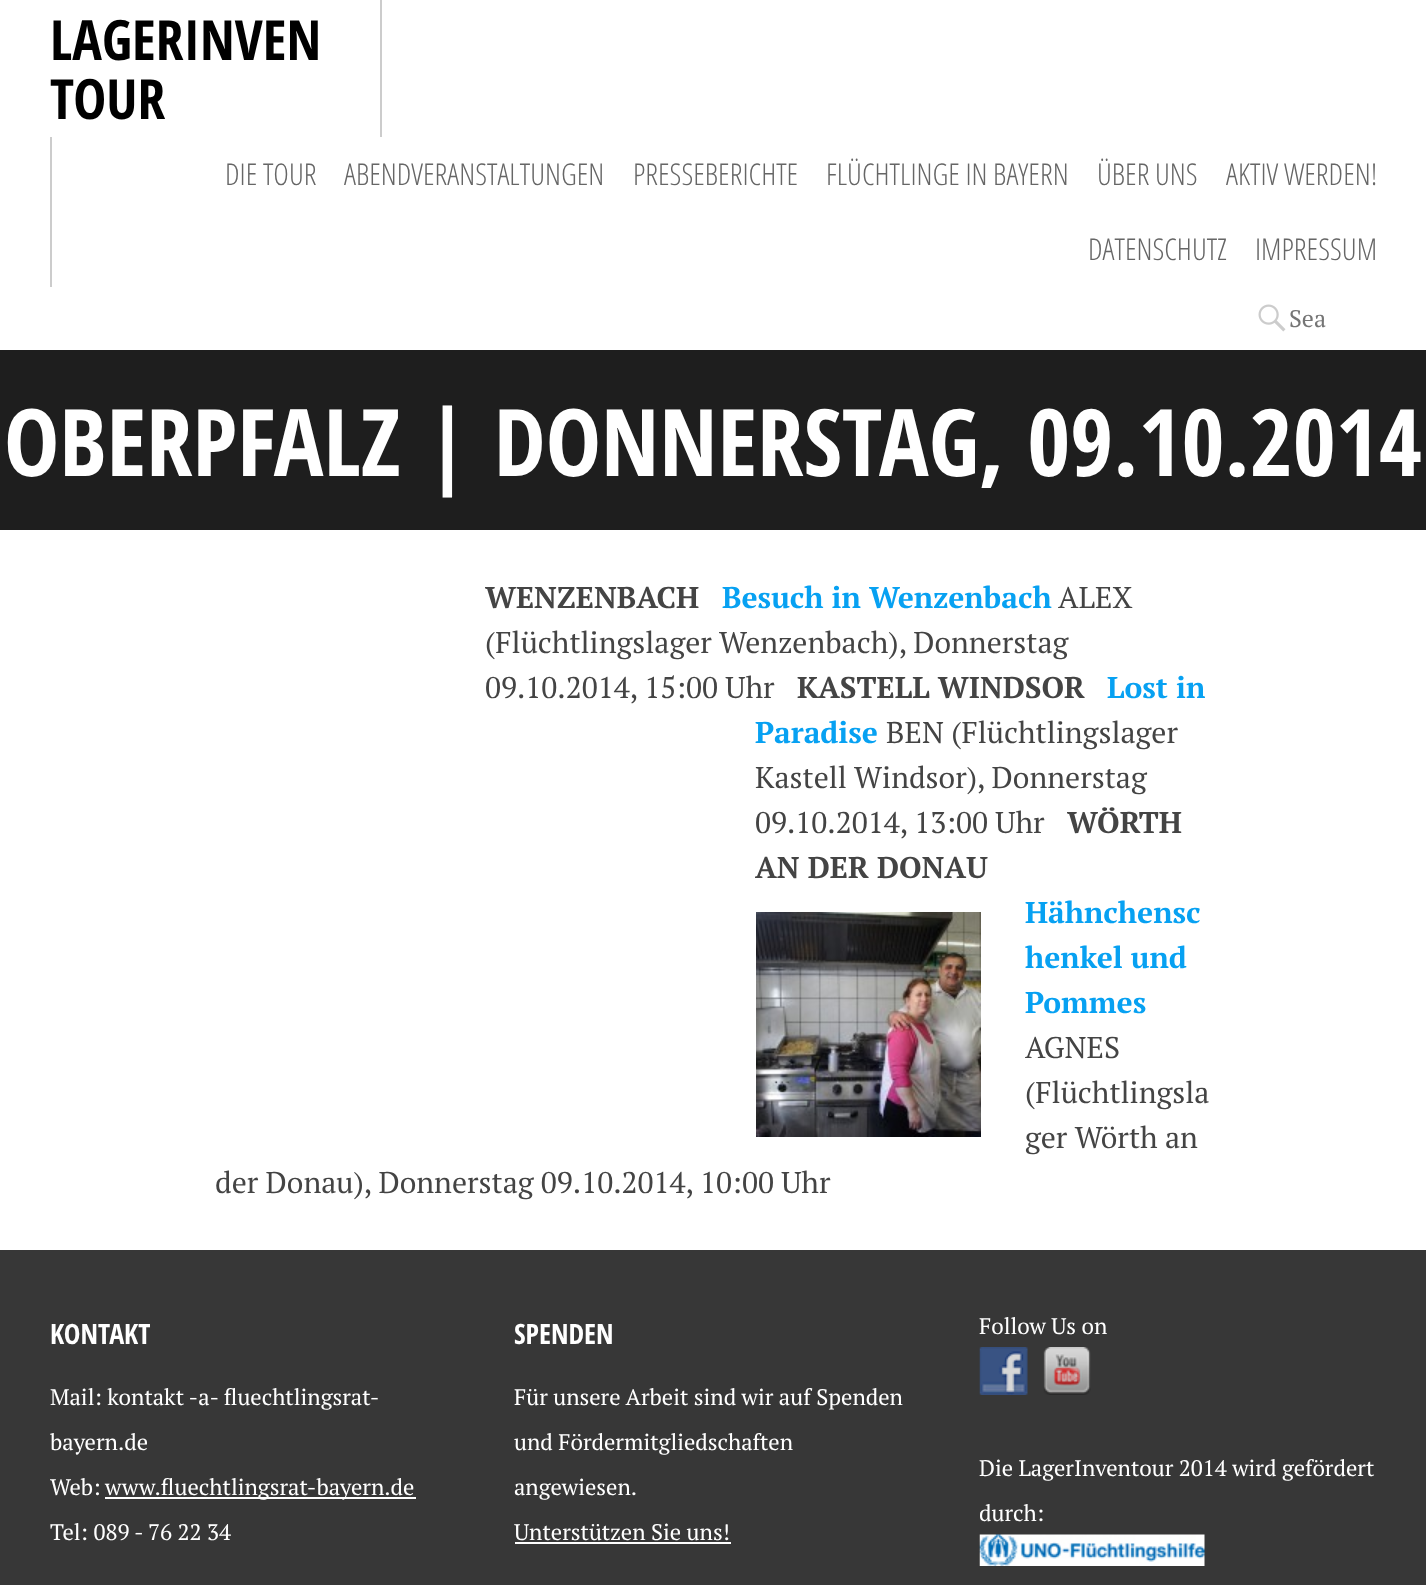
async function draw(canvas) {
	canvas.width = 1426;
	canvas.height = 1585;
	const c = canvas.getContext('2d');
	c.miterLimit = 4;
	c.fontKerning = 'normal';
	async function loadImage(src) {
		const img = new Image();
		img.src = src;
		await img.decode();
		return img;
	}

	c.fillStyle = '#fff';
	c.fillRect(0, 0, 1426, 1585);
	c.fillStyle = '#ccc';
	c.fillRect(380, 0, 2, 137);
	c.font = 'bold 55.5px Open Sans Condensed';
	c.fillStyle = '#000';
	c.fillText('LAGERINVEN', 50, 60);
	c.fillText('TOUR', 50, 119);
	c.fillStyle = '#ccc';
	c.fillRect(50, 137, 2, 150);
	c.font = '300 30px Open Sans Condensed';
	c.fillStyle = '#666';
	for (const [text, x, y] of [
		['DIE TOUR', 225, 185],
		['ABENDVERANSTALTUNGEN', 344, 185],
		['PRESSEBERICHTE', 633, 185],
		['FLÜCHTLINGE IN BAYERN', 826, 185],
		['ÜBER UNS', 1097, 185],
		['AKTIV WERDEN!', 1226, 185],
		['DATENSCHUTZ', 1088, 260],
		['IMPRESSUM', 1255, 260],
	]) {
		c.fillText(text, x, y);
	}
	c.drawImage(await loadImage('img1.png'), 1258, 304, 28, 28);
	c.font = '24px PT Serif';
	c.fillStyle = '#757575';
	c.fillText('Sea', 1289, 327);
	c.fillStyle = '#1e1e1e';
	c.fillRect(0, 350, 1426, 180);
	c.font = 'bold 93px Open Sans Condensed';
	c.fillStyle = '#fff';
	c.fillText('OBERPFALZ | DONNERSTAG, 09.10.2014', 4, 476);
	c.font = 'bold 30px PT Serif';
	c.fillStyle = '#444';
	c.fillText('WENZENBACH', 485, 608);
	c.fillStyle = '#07a1f2';
	c.fillText('Besuch in Wenzenbach', 722, 608);
	c.font = '30px PT Serif';
	c.fillStyle = '#444';
	for (const [text, x, y] of [
		['ALEX', 1058, 608],
		['(Flüchtlingslager Wenzenbach), Donnerstag', 485, 653],
		['09.10.2014, 15:00 Uhr', 485, 698],
	]) {
		c.fillText(text, x, y);
	}
	c.font = 'bold 30px PT Serif';
	c.fillText('KASTELL WINDSOR', 797, 698);
	c.fillStyle = '#07a1f2';
	c.fillText('Lost in', 1107, 698);
	c.fillText('Paradise', 755, 743);
	c.font = '30px PT Serif';
	c.fillStyle = '#444';
	for (const [text, x, y] of [
		['BEN (Flüchtlingslager', 886, 743],
		['Kastell Windsor), Donnerstag', 755, 788],
		['09.10.2014, 13:00 Uhr', 755, 833],
	]) {
		c.fillText(text, x, y);
	}
	c.font = 'bold 30px PT Serif';
	c.fillText('WÖRTH', 1067, 833);
	c.fillText('AN DER DONAU', 755, 878);
	c.drawImage(await loadImage('img2.png'), 756, 912, 225, 225);
	c.fillStyle = '#07a1f2';
	for (const [text, x, y] of [
		['Hähnchensc', 1025, 923],
		['henkel und', 1025, 968],
		['Pommes', 1025, 1013],
	]) {
		c.fillText(text, x, y);
	}
	c.font = '30px PT Serif';
	c.fillStyle = '#444';
	for (const [text, x, y] of [
		['AGNES', 1025, 1058],
		['(Flüchtlingsla', 1025, 1103],
		['ger Wörth an', 1025, 1148],
		['der Donau), Donnerstag 09.10.2014, 10:00 Uhr', 215, 1193],
	]) {
		c.fillText(text, x, y);
	}
	c.fillStyle = '#373737';
	c.fillRect(0, 1250, 1426, 335);
	c.font = 'bold 28px Open Sans Condensed';
	c.fillStyle = '#fff';
	c.fillText('KONTAKT', 50, 1344);
	c.font = '22.5px PT Serif';
	for (const [text, x, y] of [
		['Mail: kontakt -a- fluechtlingsrat-', 50, 1405],
		['bayern.de', 50, 1450],
		['Web:', 50, 1495],
	]) {
		c.fillText(text, x, y);
	}
	c.fillRect(105, 1497, 311, 2);
	c.fillText('www.fluechtlingsrat-bayern.de', 105, 1495);
	c.fillText('Tel: 089 - 76 22 34', 50, 1540);
	c.font = 'bold 28px Open Sans Condensed';
	c.fillText('SPENDEN', 514, 1344);
	c.font = '22.5px PT Serif';
	for (const [text, x, y] of [
		['Für unsere Arbeit sind wir auf Spenden', 514, 1405],
		['und Fördermitgliedschaften', 514, 1450],
		['angewiesen.', 514, 1495],
		['Unterstützen Sie uns!', 514, 1540],
	]) {
		c.fillText(text, x, y);
	}
	c.fillRect(515, 1542, 216, 2);
	c.fillText('Follow Us on', 979, 1334);
	c.drawImage(await loadImage('img3.png'), 979, 1347, 49, 48);
	c.drawImage(await loadImage('img4.png'), 1043, 1347, 48, 48);
	c.fillText('Die LagerInventour 2014 wird gefördert', 979, 1476);
	c.save();
	c.beginPath();
	c.rect(980, 1445, 397, 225);
	c.clip();
	c.fillText('durch:', 979, 1521);
	c.restore();
	c.drawImage(await loadImage('img5.png'), 979, 1534, 226, 32);
}

draw(document.querySelector('canvas'));
